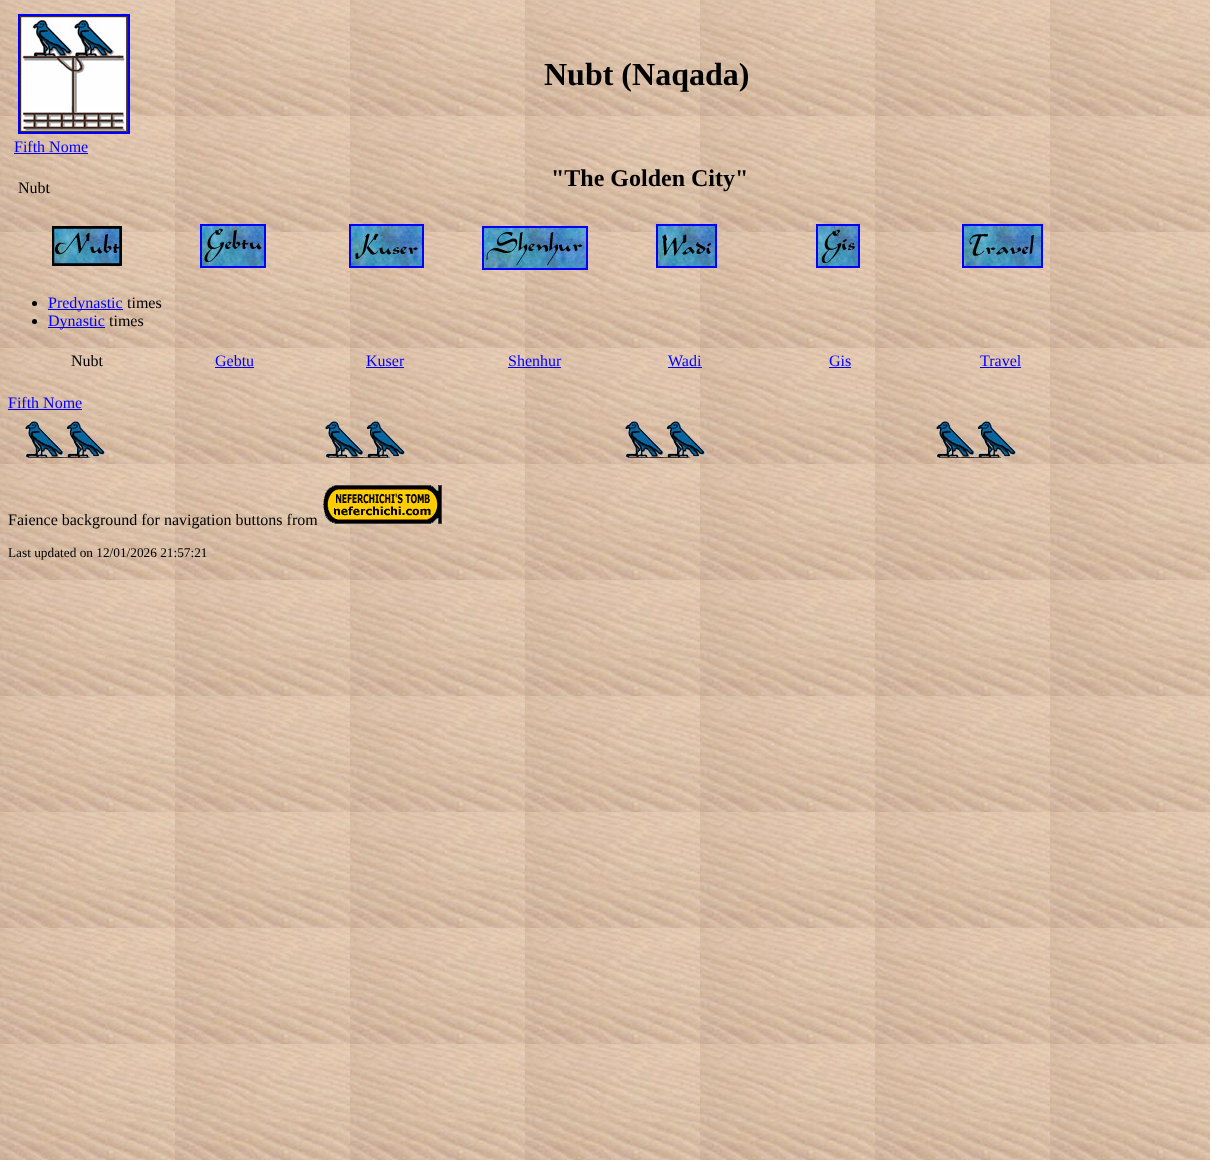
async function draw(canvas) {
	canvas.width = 1210;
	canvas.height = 1160;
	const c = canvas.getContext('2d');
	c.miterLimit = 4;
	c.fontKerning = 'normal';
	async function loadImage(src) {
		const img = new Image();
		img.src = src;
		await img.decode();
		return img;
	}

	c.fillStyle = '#fff';
	c.fillRect(0, 0, 1210, 1160);
	c.drawImage(await loadImage('img1.png'), 0, 0, 1210, 1160);
	c.font = 'bold 32px Liberation Serif';
	c.fillStyle = '#000';
	c.fillText('Nubt (Naqada)', 544, 85);
	c.strokeStyle = '#00f';
	c.lineWidth = 2;
	c.strokeRect(19, 15, 110, 118);
	c.drawImage(await loadImage('img2.png'), 20, 16, 108, 116);
	c.font = '16px Liberation Serif';
	c.fillStyle = '#00f';
	c.fillText('Fifth Nome', 14, 152);
	c.fillRect(14, 153, 74, 1);
	c.fillStyle = '#000';
	c.fillText('Nubt', 18, 193);
	c.font = 'bold 24px Liberation Serif';
	c.fillText('"The Golden City"', 551, 186);
	c.drawImage(await loadImage('img3.png'), 52, 226, 70, 40);
	c.strokeRect(201, 225, 64, 42);
	c.drawImage(await loadImage('img4.png'), 202, 226, 62, 40);
	c.strokeRect(350, 225, 73, 42);
	c.drawImage(await loadImage('img5.png'), 351, 226, 71, 40);
	c.strokeRect(483, 227, 104, 42);
	c.drawImage(await loadImage('img6.png'), 484, 228, 102, 40);
	c.strokeRect(657, 225, 59, 42);
	c.drawImage(await loadImage('img7.png'), 658, 226, 57, 40);
	c.strokeRect(817, 225, 42, 42);
	c.drawImage(await loadImage('img8.png'), 818, 226, 40, 40);
	c.strokeRect(963, 225, 79, 42);
	c.drawImage(await loadImage('img9.png'), 964, 226, 77, 40);
	c.beginPath();
	c.arc(34.5, 303.5, 2.5, 0, 2 * Math.PI);
	c.fill();
	c.fillStyle = '#00f';
	c.fillRect(48, 309, 75, 1);
	c.font = '16px Liberation Serif';
	c.fillText('Predynastic', 48, 308);
	c.fillStyle = '#000';
	c.fillText('times', 127, 308);
	c.beginPath();
	c.arc(34.5, 321.5, 2.5, 0, 2 * Math.PI);
	c.fill();
	c.fillStyle = '#00f';
	c.fillRect(48, 327, 57, 1);
	c.fillText('Dynastic', 48, 326);
	c.fillStyle = '#000';
	c.fillText('times', 109, 326);
	c.fillText('Nubt', 71, 366);
	c.fillStyle = '#00f';
	c.fillText('Gebtu', 215, 366);
	c.fillRect(215, 367, 39, 1);
	c.fillText('Kuser', 366, 366);
	c.fillRect(366, 367, 38, 1);
	c.fillText('Shenhur', 508, 366);
	c.fillRect(508, 367, 53, 1);
	c.fillText('Wadi', 668, 366);
	c.fillRect(668, 367, 34, 1);
	c.fillText('Gis', 829, 366);
	c.fillRect(829, 367, 22, 1);
	c.fillText('Travel', 980, 366);
	c.fillRect(980, 367, 41, 1);
	c.fillText('Fifth Nome', 8, 408);
	c.fillRect(8, 409, 74, 1);
	c.drawImage(await loadImage('img10.png'), 25, 421, 81, 37);
	c.drawImage(await loadImage('img11.png'), 325, 421, 81, 37);
	c.drawImage(await loadImage('img12.png'), 625, 421, 81, 37);
	c.drawImage(await loadImage('img13.png'), 936, 421, 81, 37);
	c.fillStyle = '#000';
	c.fillText('Faience background for navigation buttons from', 8, 525);
	c.drawImage(await loadImage('img14.png'), 323, 485, 119, 39);
	c.font = '13.3px Liberation Serif';
	c.fillText('Last updated on 12/01/2026 21:57:21', 8, 557);
}

draw(document.querySelector('canvas'));
